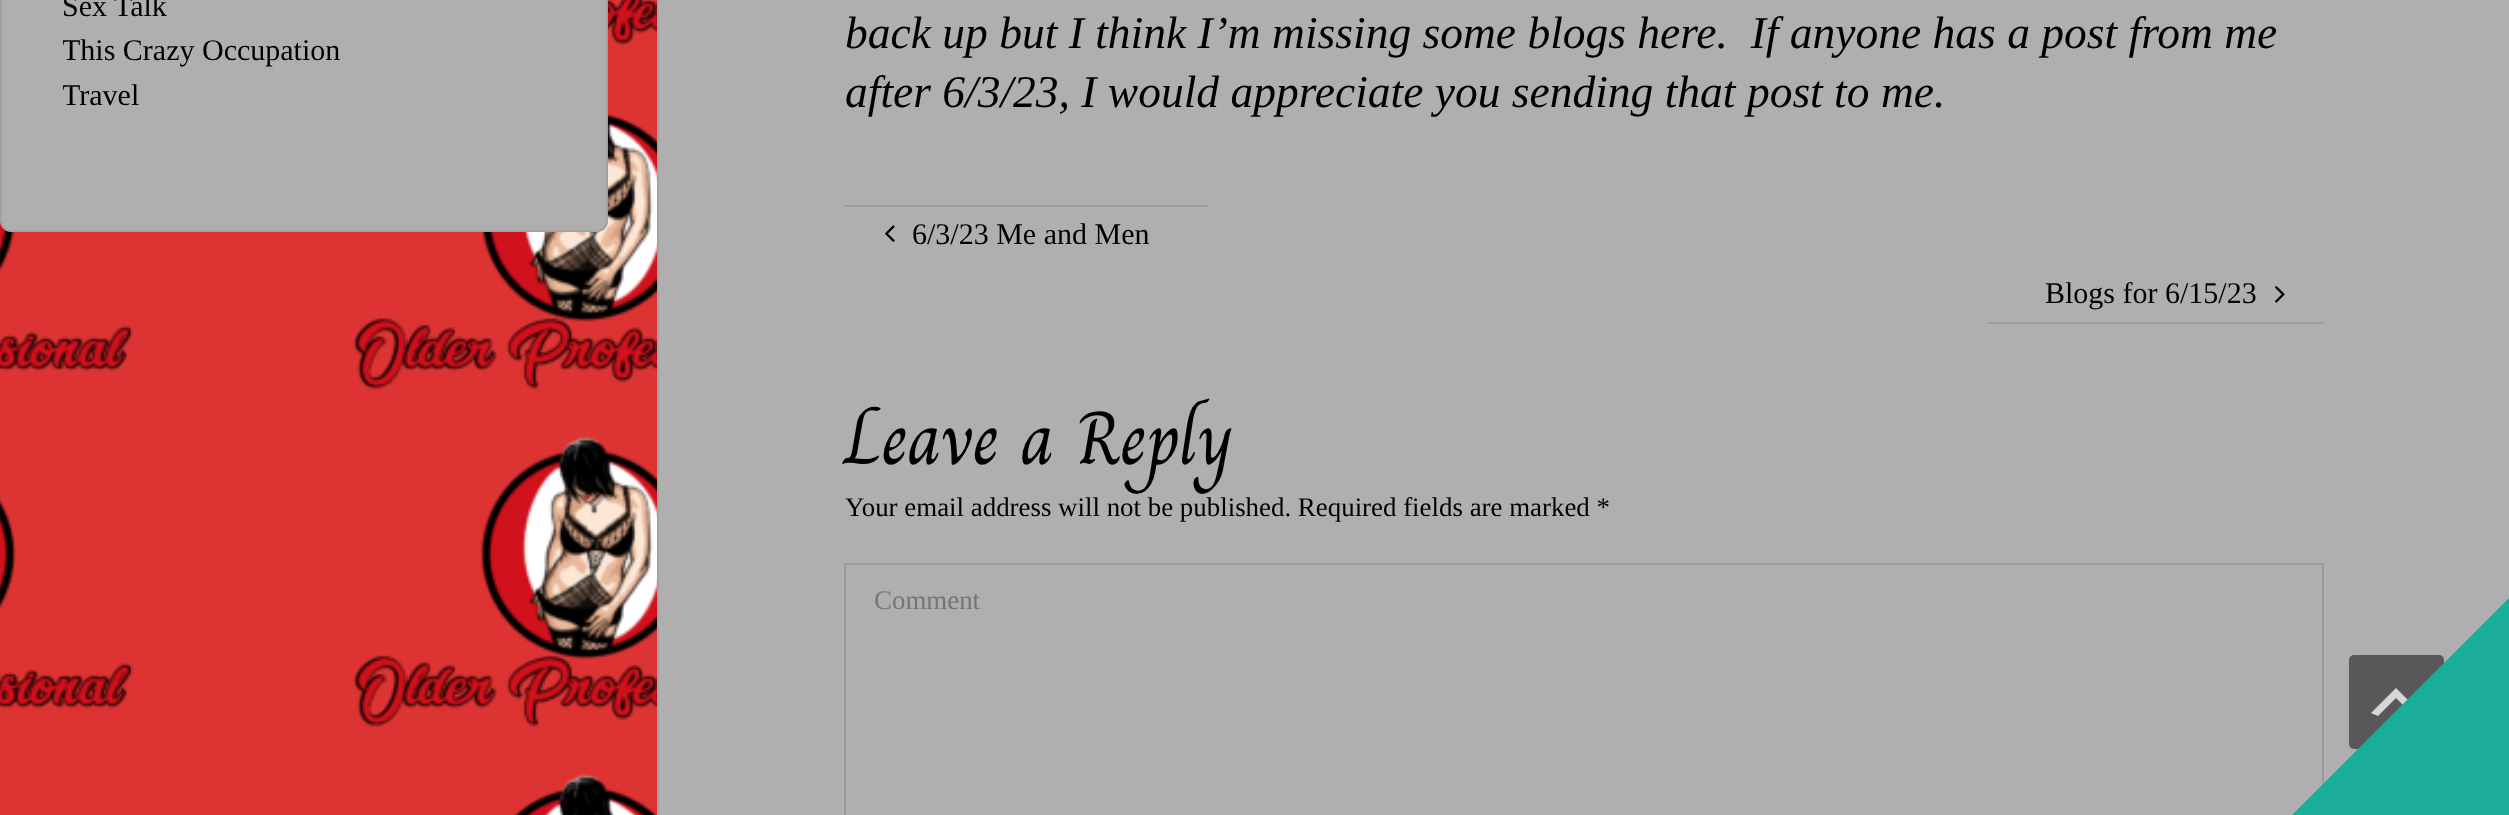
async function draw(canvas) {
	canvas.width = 2509;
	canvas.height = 815;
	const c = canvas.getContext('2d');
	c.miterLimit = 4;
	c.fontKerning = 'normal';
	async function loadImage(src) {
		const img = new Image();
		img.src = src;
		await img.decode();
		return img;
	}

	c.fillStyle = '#d33';
	c.fillRect(0, 0, 2509, 815);
	c.drawImage(await loadImage('img1.png'), 0, 0, 657, 815);
	c.fillStyle = '#afafaf';
	c.beginPath();
	c.roundRect(0, -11, 608, 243, 11);
	c.fill();
	c.beginPath();
	c.roundRect(1, -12, 606, 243, 10);
	c.strokeStyle = '#00000012';
	c.lineWidth = 2;
	c.stroke();
	c.font = '30px Liberation Serif';
	c.fillStyle = '#000';
	c.fillText('Sex Talk', 62, 16);
	c.save();
	c.beginPath();
	c.rect(63, 0, 482, 126);
	c.clip();
	c.fillText('This Crazy Occupation', 62, 60);
	c.fillText('Travel', 62, 105);
	c.restore();
	c.fillStyle = '#afafaf';
	c.beginPath();
	c.rect(658, -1, 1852, 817);
	c.fill();
	c.strokeStyle = '#a3a3a3';
	c.stroke();
	c.font = 'italic 45.5px Liberation Serif';
	c.fillStyle = '#000';
	c.fillText('back up but I think I’m missing some blogs here.  If anyone has a post from me', 845, 48);
	c.fillText('after 6/3/23, I would appreciate you sending that post to me.', 845, 107);
	c.fillStyle = '#9e9e9e';
	c.fillRect(844, 205, 364, 2);
	c.drawImage(await loadImage('img2.png'), 885, 225, 10, 17);
	c.font = '30px Liberation Serif';
	c.fillStyle = '#000';
	c.fillText('6/3/23 Me and Men', 912, 244);
	c.fillText('Blogs for 6/15/23', 2045, 303);
	c.drawImage(await loadImage('img3.png'), 2275, 286, 10, 17);
	c.fillStyle = '#9e9e9e';
	c.fillRect(1987, 322, 337, 2);
	c.font = '75px Charm';
	c.fillStyle = '#000';
	c.fillText('Leave a Reply', 845, 464);
	c.font = '26.9px Liberation Serif';
	c.fillText('Your email address will not be published. Required fields are marked *', 845, 516);
	c.strokeStyle = '#999';
	c.strokeRect(845, 564, 1478, 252);
	c.fillStyle = '#757575';
	c.fillText('Comment', 874, 609);
	c.beginPath();
	c.moveTo(2338, 775);
	c.lineTo(2428, 775);
	c.bezierCurveTo(2433.5, 775, 2438, 779.5, 2438, 785);
	c.lineTo(2438, 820);
	c.lineTo(2328, 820);
	c.lineTo(2328, 785);
	c.bezierCurveTo(2328, 779.5, 2332.5, 775, 2338, 775);
	c.closePath();
	c.strokeStyle = '#9a9a9a';
	c.stroke();
	c.fillStyle = '#585858';
	c.beginPath();
	c.roundRect(2349, 655, 95, 94, 5);
	c.fill();
	c.fillStyle = '#d7d7d7';
	c.beginPath();
	c.moveTo(2414, 716);
	c.lineTo(2396, 698);
	c.lineTo(2378, 716);
	c.lineTo(2371, 713);
	c.lineTo(2396, 688);
	c.lineTo(2421, 713);
	c.closePath();
	c.fill();
	c.fillStyle = '#1bad99';
	c.beginPath();
	c.moveTo(2283, 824);
	c.lineTo(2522, 585);
	c.bezierCurveTo(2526, 581, 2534, 581, 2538, 585);
	c.lineTo(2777, 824);
	c.bezierCurveTo(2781, 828, 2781, 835, 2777, 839);
	c.lineTo(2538, 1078);
	c.bezierCurveTo(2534, 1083, 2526, 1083, 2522, 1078);
	c.lineTo(2283, 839);
	c.bezierCurveTo(2279, 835, 2279, 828, 2283, 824);
	c.closePath();
	c.fill();
}

draw(document.querySelector('canvas'));
